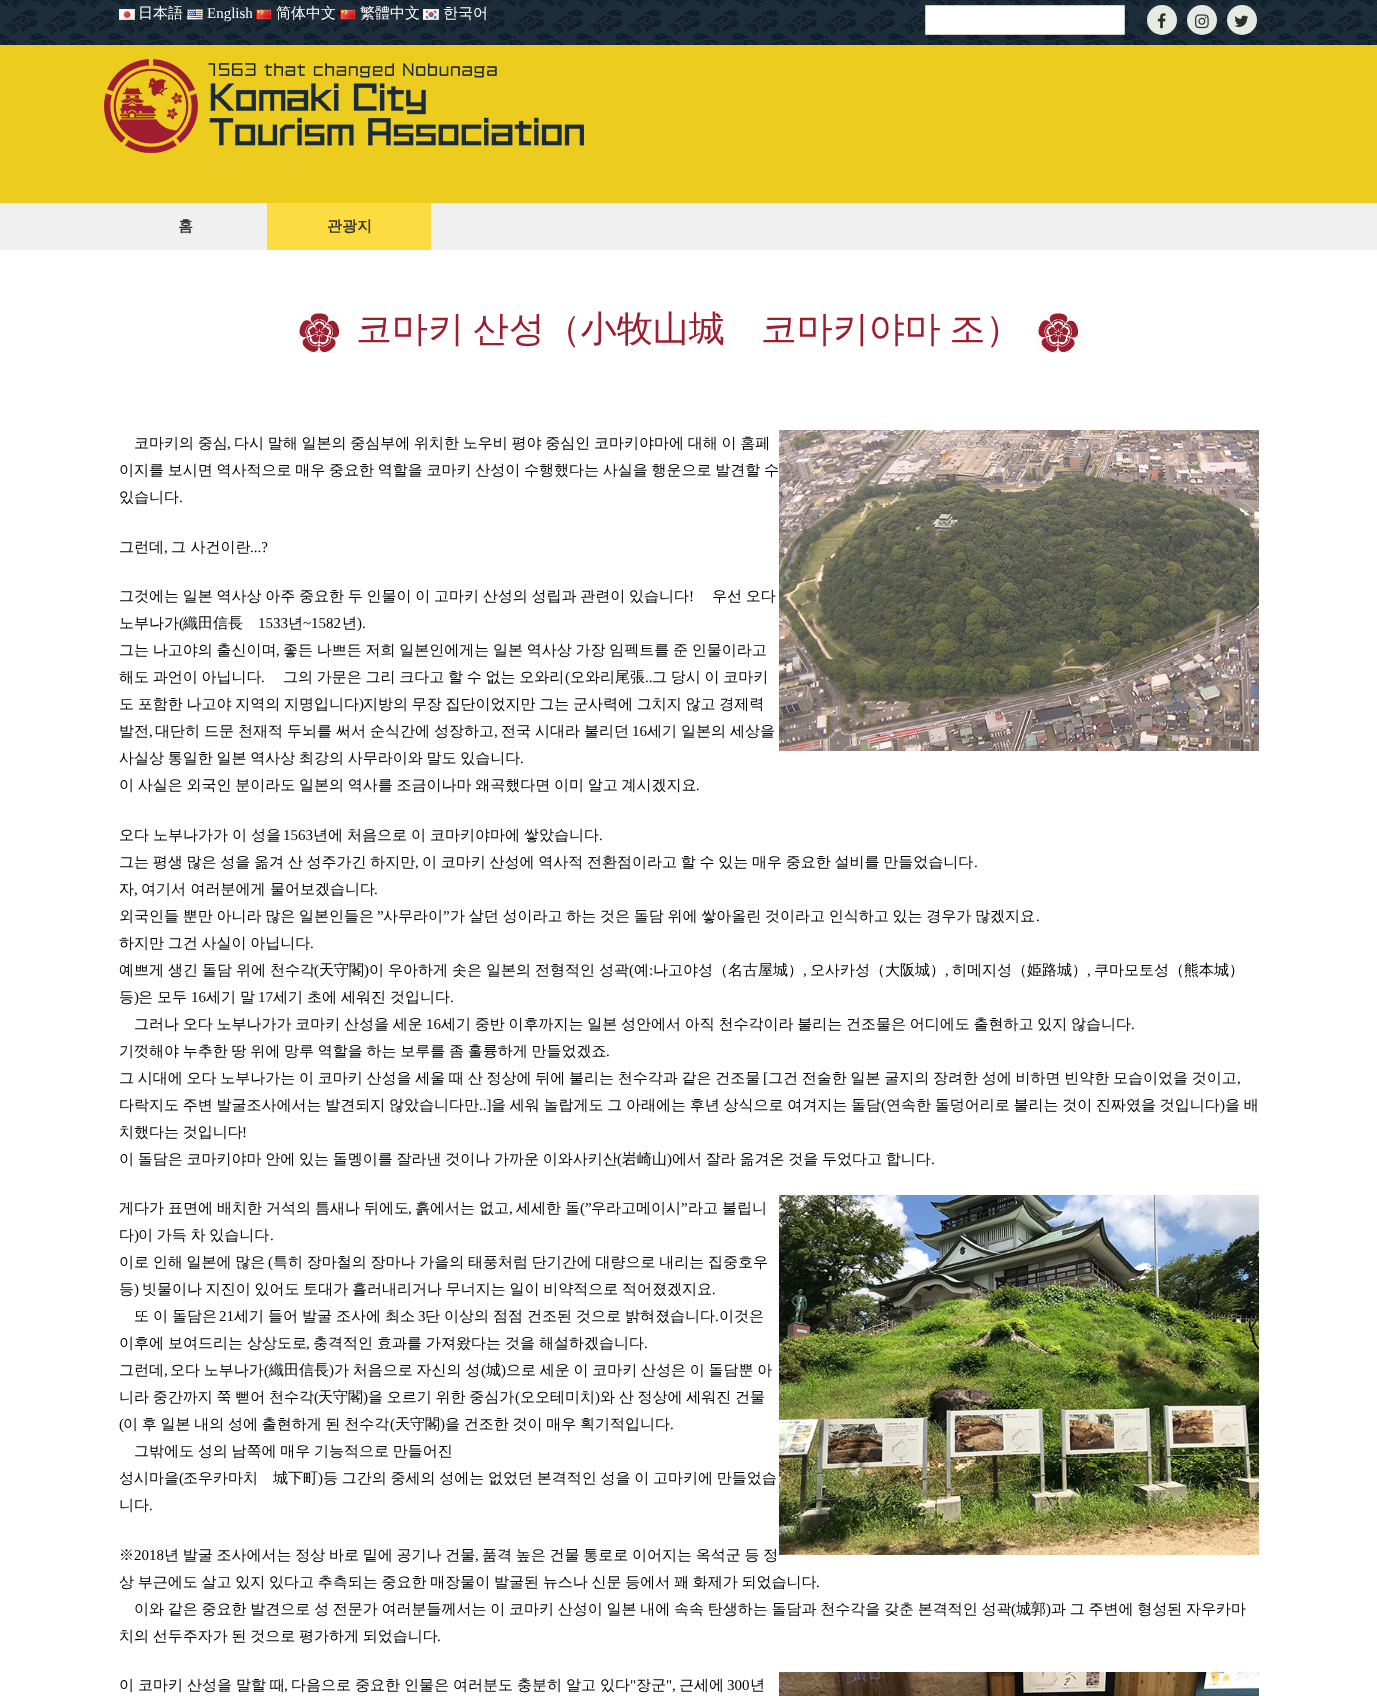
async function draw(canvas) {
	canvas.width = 1377;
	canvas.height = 1696;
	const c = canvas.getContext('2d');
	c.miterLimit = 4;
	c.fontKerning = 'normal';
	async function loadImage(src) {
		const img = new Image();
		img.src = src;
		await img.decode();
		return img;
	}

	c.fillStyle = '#eccc1f';
	c.fillRect(0, 0, 1377, 1696);
	c.drawImage(await loadImage('img1.png'), 0, 0, 1377, 45);
	c.drawImage(await loadImage('img2.png'), 119, 9, 16, 11);
	c.font = '500 15px WenQuanYi Zen Hei';
	c.fillStyle = '#fff';
	c.fillText('日本語', 138, 18);
	c.drawImage(await loadImage('img3.png'), 187, 9, 16, 11);
	c.font = '15px Liberation Serif';
	c.fillText('English', 207, 18);
	c.drawImage(await loadImage('img4.png'), 256, 9, 16, 11);
	c.font = '500 15px WenQuanYi Zen Hei';
	c.fillText('简体中文', 276, 18);
	c.drawImage(await loadImage('img4.png'), 340, 9, 16, 11);
	c.fillText('繁體中文', 360, 18);
	c.drawImage(await loadImage('img5.png'), 423, 9, 16, 11);
	c.fillText('한국어', 443, 18);
	c.beginPath();
	c.rect(925.5, 5.5, 199, 29);
	c.fill();
	c.strokeStyle = '#cbcbcb';
	c.stroke();
	c.fillStyle = '#e6eae3';
	c.beginPath();
	c.arc(1162, 20, 15, 0, 2 * Math.PI);
	c.fill();
	c.drawImage(await loadImage('img6.png'), 1157, 13, 9, 16);
	c.beginPath();
	c.arc(1202, 20, 15, 0, 2 * Math.PI);
	c.fill();
	c.drawImage(await loadImage('img7.png'), 1195, 14, 14, 15);
	c.beginPath();
	c.arc(1242, 20, 15, 0, 2 * Math.PI);
	c.fill();
	c.drawImage(await loadImage('img8.png'), 1234, 15, 15, 12);
	c.drawImage(await loadImage('img9.png'), 104, 59, 480, 94);
	c.fillStyle = '#f0f0f0';
	c.fillRect(0, 203, 1377, 47);
	c.font = 'bold 15px WenQuanYi Zen Hei';
	c.fillStyle = '#333';
	c.fillText('홈', 178, 231);
	c.fillStyle = '#fcdc40';
	c.fillRect(267, 203, 164, 47);
	c.fillStyle = '#333';
	c.fillText('관광지', 327, 231);
	c.fillStyle = '#fff';
	c.fillRect(0, 250, 1377, 1446);
	c.drawImage(await loadImage('img10.png'), 296, 307, 47, 47);
	c.wordSpacing = '-2px';
	c.font = '500 36px WenQuanYi Zen Hei';
	c.fillStyle = '#9c1e2f';
	c.fillText('코마키 산성（小牧山城　코마키야마 조）', 356, 341);
	c.drawImage(await loadImage('img10.png'), 1035, 307, 47, 47);
	c.wordSpacing = '-0.75px';
	c.font = '500 15px WenQuanYi Zen Hei';
	c.fillStyle = '#000';
	c.fillText('코마키의 중심', 134, 448);
	c.wordSpacing = '0px';
	c.font = '15px Liberation Serif';
	c.fillText(',', 227, 448);
	c.wordSpacing = '-0.75px';
	c.font = '500 15px WenQuanYi Zen Hei';
	c.fillText('다시 말해 일본의 중심부에 위치한 노우비 평야 중심인 코마키야마에 대해 이 홈페', 234, 448);
	c.drawImage(await loadImage('img11.png'), 779, 430, 480, 321);
	c.fillText('이지를 보시면 역사적으로 매우 중요한 역할을 코마키 산성이 수행했다는 사실을 행운으로 발견할 수', 119, 475);
	c.wordSpacing = '0px';
	c.fillText('있습니다', 119, 502);
	c.font = '15px Liberation Serif';
	c.fillText('.', 179, 502);
	c.font = '500 15px WenQuanYi Zen Hei';
	c.fillText('그런데', 119, 552);
	c.font = '15px Liberation Serif';
	c.fillText(',', 164, 552);
	c.font = '500 15px WenQuanYi Zen Hei';
	c.fillText('그 사건이란', 171, 552);
	c.font = '15px Liberation Serif';
	c.fillText('...?', 250, 552);
	c.wordSpacing = '-0.75px';
	c.font = '500 15px WenQuanYi Zen Hei';
	c.fillText('그것에는 일본 역사상 아주 중요한 두 인물이 이 고마키 산성의 성립과 관련이 있습니다', 119, 601);
	c.wordSpacing = '0px';
	c.font = '15px Liberation Serif';
	c.fillText('!', 689, 601);
	c.wordSpacing = '-0.75px';
	c.font = '500 15px WenQuanYi Zen Hei';
	c.fillText('우선 오다', 712, 601);
	c.wordSpacing = '0px';
	c.fillText('노부나가', 119, 628);
	c.font = '15px Liberation Serif';
	c.fillText('(', 179, 628);
	c.font = '500 15px WenQuanYi Zen Hei';
	c.fillText('織田信長', 183, 628);
	c.font = '15px Liberation Serif';
	c.fillText('1533', 258, 628);
	c.font = '500 15px WenQuanYi Zen Hei';
	c.fillText('년', 288, 628);
	c.font = '15px Liberation Serif';
	c.fillText('~1582', 303, 628);
	c.font = '500 15px WenQuanYi Zen Hei';
	c.fillText('년', 342, 628);
	c.font = '15px Liberation Serif';
	c.fillText(').', 357, 628);
	c.wordSpacing = '-0.75px';
	c.font = '500 15px WenQuanYi Zen Hei';
	c.fillText('그는 나고야의 출신이며', 119, 655);
	c.wordSpacing = '0px';
	c.font = '15px Liberation Serif';
	c.fillText(',', 276, 655);
	c.wordSpacing = '-0.75px';
	c.font = '500 15px WenQuanYi Zen Hei';
	c.fillText('좋든 나쁘든 저희 일본인에게는 일본 역사상 가장 임펙트를 준 인물이라고', 283, 655);
	c.fillText('해도 과언이 아닙니다', 119, 682);
	c.wordSpacing = '0px';
	c.font = '15px Liberation Serif';
	c.fillText('.', 261, 682);
	c.wordSpacing = '-0.75px';
	c.font = '500 15px WenQuanYi Zen Hei';
	c.fillText('그의 가문은 그리 크다고 할 수 없는 오와리', 283, 682);
	c.wordSpacing = '0px';
	c.font = '15px Liberation Serif';
	c.fillText('(', 565, 682);
	c.font = '500 15px WenQuanYi Zen Hei';
	c.fillText('오와리尾張', 570, 682);
	c.font = '15px Liberation Serif';
	c.fillText('..', 645, 682);
	c.wordSpacing = '-0.75px';
	c.font = '500 15px WenQuanYi Zen Hei';
	c.fillText('그 당시 이 코마키', 652, 682);
	c.fillText('도 포함한 나고야 지역의 지명입니다', 119, 709);
	c.wordSpacing = '0px';
	c.font = '15px Liberation Serif';
	c.fillText(')', 359, 709);
	c.wordSpacing = '-0.75px';
	c.font = '500 15px WenQuanYi Zen Hei';
	c.fillText('지방의 무장 집단이었지만 그는 군사력에 그치지 않고 경제력', 363, 709);
	c.wordSpacing = '0px';
	c.fillText('발전', 119, 736);
	c.font = '15px Liberation Serif';
	c.fillText(',', 149, 736);
	c.wordSpacing = '-0.5px';
	c.font = '500 15px WenQuanYi Zen Hei';
	c.fillText('대단히 드문 천재적 두뇌를 써서 순식간에 성장하고', 155, 736);
	c.wordSpacing = '0px';
	c.font = '15px Liberation Serif';
	c.fillText(',', 494, 736);
	c.wordSpacing = '-0.5px';
	c.font = '500 15px WenQuanYi Zen Hei';
	c.fillText('전국 시대라 불리던', 501, 736);
	c.wordSpacing = '0px';
	c.font = '15px Liberation Serif';
	c.fillText('16', 632, 736);
	c.wordSpacing = '-0.5px';
	c.font = '500 15px WenQuanYi Zen Hei';
	c.fillText('세기 일본의 세상을', 647, 736);
	c.wordSpacing = '-0.75px';
	c.fillText('사실상 통일한 일본 역사상 최강의 사무라이와 말도 있습니다', 119, 763);
	c.wordSpacing = '0px';
	c.font = '15px Liberation Serif';
	c.fillText('.', 520, 763);
	c.wordSpacing = '-0.75px';
	c.font = '500 15px WenQuanYi Zen Hei';
	c.fillText('이 사실은 외국인 분이라도 일본의 역사를 조금이나마 왜곡했다면 이미 알고 계시겠지요', 119, 790);
	c.wordSpacing = '0px';
	c.font = '15px Liberation Serif';
	c.fillText('.', 696, 790);
	c.wordSpacing = '-0.5px';
	c.font = '500 15px WenQuanYi Zen Hei';
	c.fillText('오다 노부나가가 이 성을', 119, 840);
	c.wordSpacing = '0px';
	c.font = '15px Liberation Serif';
	c.fillText('1563', 283, 840);
	c.wordSpacing = '-0.5px';
	c.font = '500 15px WenQuanYi Zen Hei';
	c.fillText('년에 처음으로 이 코마키야마에 쌓았습니다', 313, 840);
	c.wordSpacing = '0px';
	c.font = '15px Liberation Serif';
	c.fillText('.', 599, 840);
	c.wordSpacing = '-0.75px';
	c.font = '500 15px WenQuanYi Zen Hei';
	c.fillText('그는 평생 많은 성을 옮겨 산 성주가긴 하지만', 119, 867);
	c.wordSpacing = '0px';
	c.font = '15px Liberation Serif';
	c.fillText(',', 415, 867);
	c.wordSpacing = '-0.75px';
	c.font = '500 15px WenQuanYi Zen Hei';
	c.fillText('이 코마키 산성에 역사적 전환점이라고 할 수 있는 매우 중요한 설비를 만들었습니다', 422, 867);
	c.wordSpacing = '0px';
	c.font = '15px Liberation Serif';
	c.fillText('.', 974, 867);
	c.font = '500 15px WenQuanYi Zen Hei';
	c.fillText('자', 119, 894);
	c.font = '15px Liberation Serif';
	c.fillText(',', 134, 894);
	c.font = '500 15px WenQuanYi Zen Hei';
	c.fillText('여기서 여러분에게 물어보겠습니다', 141, 894);
	c.font = '15px Liberation Serif';
	c.fillText('.', 374, 894);
	c.wordSpacing = '-0.75px';
	c.font = '500 15px WenQuanYi Zen Hei';
	c.fillText('외국인들 뿐만 아니라 많은 일본인들은', 119, 921);
	c.wordSpacing = '0px';
	c.font = '15px Liberation Serif';
	c.fillText('”', 377, 921);
	c.font = '500 15px WenQuanYi Zen Hei';
	c.fillText('사무라이', 383, 921);
	c.font = '15px Liberation Serif';
	c.fillText('”', 443, 921);
	c.wordSpacing = '-0.75px';
	c.font = '500 15px WenQuanYi Zen Hei';
	c.fillText('가 살던 성이라고 하는 것은 돌담 위에 쌓아올린 것이라고 인식하고 있는 경우가 많겠지요', 450, 921);
	c.wordSpacing = '0px';
	c.font = '15px Liberation Serif';
	c.fillText('.', 1036, 921);
	c.wordSpacing = '-0.75px';
	c.font = '500 15px WenQuanYi Zen Hei';
	c.fillText('하지만 그건 사실이 아닙니다', 119, 948);
	c.wordSpacing = '0px';
	c.font = '15px Liberation Serif';
	c.fillText('.', 310, 948);
	c.wordSpacing = '-0.5px';
	c.font = '500 15px WenQuanYi Zen Hei';
	c.fillText('예쁘게 생긴 돌담 위에 천수각', 119, 975);
	c.wordSpacing = '0px';
	c.font = '15px Liberation Serif';
	c.fillText('(', 314, 975);
	c.font = '500 15px WenQuanYi Zen Hei';
	c.fillText('天守閣', 319, 975);
	c.font = '15px Liberation Serif';
	c.fillText(')', 364, 975);
	c.wordSpacing = '-0.5px';
	c.font = '500 15px WenQuanYi Zen Hei';
	c.fillText('이 우아하게 솟은 일본의 전형적인 성곽', 369, 975);
	c.wordSpacing = '0px';
	c.font = '15px Liberation Serif';
	c.fillText('(', 629, 975);
	c.font = '500 15px WenQuanYi Zen Hei';
	c.fillText('예', 634, 975);
	c.font = '15px Liberation Serif';
	c.fillText(':', 649, 975);
	c.font = '500 15px WenQuanYi Zen Hei';
	c.fillText('나고야성（名古屋城）', 653, 975);
	c.font = '15px Liberation Serif';
	c.fillText(',', 803, 975);
	c.font = '500 15px WenQuanYi Zen Hei';
	c.fillText('오사카성（大阪城）', 810, 975);
	c.font = '15px Liberation Serif';
	c.fillText(',', 945, 975);
	c.font = '500 15px WenQuanYi Zen Hei';
	c.fillText('히메지성（姫路城）', 952, 975);
	c.font = '15px Liberation Serif';
	c.fillText(',', 1087, 975);
	c.font = '500 15px WenQuanYi Zen Hei';
	c.fillText('쿠마모토성（熊本城）', 1094, 975);
	c.fillText('등', 119, 1002);
	c.font = '15px Liberation Serif';
	c.fillText(')', 134, 1002);
	c.wordSpacing = '-0.5px';
	c.font = '500 15px WenQuanYi Zen Hei';
	c.fillText('은 모두', 138, 1002);
	c.wordSpacing = '0px';
	c.font = '15px Liberation Serif';
	c.fillText('16', 191, 1002);
	c.wordSpacing = '-0.5px';
	c.font = '500 15px WenQuanYi Zen Hei';
	c.fillText('세기 말', 206, 1002);
	c.wordSpacing = '0px';
	c.font = '15px Liberation Serif';
	c.fillText('17', 258, 1002);
	c.wordSpacing = '-0.5px';
	c.font = '500 15px WenQuanYi Zen Hei';
	c.fillText('세기 초에 세워진 것입니다', 273, 1002);
	c.wordSpacing = '0px';
	c.font = '15px Liberation Serif';
	c.fillText('.', 450, 1002);
	c.wordSpacing = '-0.75px';
	c.font = '500 15px WenQuanYi Zen Hei';
	c.fillText('그러나 오다 노부나가가 코마키 산성을 세운', 134, 1029);
	c.wordSpacing = '0px';
	c.font = '15px Liberation Serif';
	c.fillText('16', 426, 1029);
	c.wordSpacing = '-0.75px';
	c.font = '500 15px WenQuanYi Zen Hei';
	c.fillText('세기 중반 이후까지는 일본 성안에서 아직 천수각이라 불리는 건조물은 어디에도 출현하고 있지 않습니다', 441, 1029);
	c.wordSpacing = '0px';
	c.font = '15px Liberation Serif';
	c.fillText('.', 1131, 1029);
	c.wordSpacing = '-0.75px';
	c.font = '500 15px WenQuanYi Zen Hei';
	c.fillText('기껏해야 누추한 땅 위에 망루 역할을 하는 보루를 좀 훌륭하게 만들었겠죠', 119, 1056);
	c.wordSpacing = '0px';
	c.font = '15px Liberation Serif';
	c.fillText('.', 606, 1056);
	c.wordSpacing = '-0.75px';
	c.font = '500 15px WenQuanYi Zen Hei';
	c.fillText('그 시대에 오다 노부나가는 이 코마키 산성을 세울 때 산 정상에 뒤에 불리는 천수각과 같은 건조물', 119, 1083);
	c.wordSpacing = '0px';
	c.font = '15px Liberation Serif';
	c.fillText('[', 763, 1083);
	c.wordSpacing = '-0.75px';
	c.font = '500 15px WenQuanYi Zen Hei';
	c.fillText('그건 전술한 일본 굴지의 장려한 성에 비하면 빈약한 모습이었을 것이고', 768, 1083);
	c.wordSpacing = '0px';
	c.font = '15px Liberation Serif';
	c.fillText(',', 1237, 1083);
	c.wordSpacing = '-0.75px';
	c.font = '500 15px WenQuanYi Zen Hei';
	c.fillText('다락지도 주변 발굴조사에서는 발견되지 않았습니다만', 119, 1110);
	c.wordSpacing = '0px';
	c.font = '15px Liberation Serif';
	c.fillText('..]', 479, 1110);
	c.wordSpacing = '-0.75px';
	c.font = '500 15px WenQuanYi Zen Hei';
	c.fillText('을 세워 놀랍게도 그 아래에는 후년 상식으로 여겨지는 돌담', 491, 1110);
	c.wordSpacing = '0px';
	c.font = '15px Liberation Serif';
	c.fillText('(', 881, 1110);
	c.wordSpacing = '-0.75px';
	c.font = '500 15px WenQuanYi Zen Hei';
	c.fillText('연속한 돌덩어리로 불리는 것이 진짜였을 것입니다', 886, 1110);
	c.wordSpacing = '0px';
	c.font = '15px Liberation Serif';
	c.fillText(')', 1220, 1110);
	c.wordSpacing = '-0.75px';
	c.font = '500 15px WenQuanYi Zen Hei';
	c.fillText('을 배', 1225, 1110);
	c.fillText('치했다는 것입니다', 119, 1137);
	c.wordSpacing = '0px';
	c.font = '15px Liberation Serif';
	c.fillText('!', 242, 1137);
	c.wordSpacing = '-0.75px';
	c.font = '500 15px WenQuanYi Zen Hei';
	c.fillText('이 돌담은 코마키야마 안에 있는 돌멩이를 잘라낸 것이나 가까운 이와사키산', 119, 1164);
	c.wordSpacing = '0px';
	c.font = '15px Liberation Serif';
	c.fillText('(', 617, 1164);
	c.font = '500 15px WenQuanYi Zen Hei';
	c.fillText('岩崎山', 622, 1164);
	c.font = '15px Liberation Serif';
	c.fillText(')', 667, 1164);
	c.wordSpacing = '-0.75px';
	c.font = '500 15px WenQuanYi Zen Hei';
	c.fillText('에서 잘라 옮겨온 것을 두었다고 합니다', 672, 1164);
	c.wordSpacing = '0px';
	c.font = '15px Liberation Serif';
	c.fillText('.', 931, 1164);
	c.wordSpacing = '-0.5px';
	c.font = '500 15px WenQuanYi Zen Hei';
	for (const [text, x, y] of [
		['게다가 표면에 배치한 거석의 틈새나 뒤에도', 119, 1213],
		['흙에서는 없고', 415, 1213],
		['세세한 돌', 516, 1213],
	]) {
		c.fillText(text, x, y);
	}
	c.wordSpacing = '0px';
	c.font = '15px Liberation Serif';
	c.fillText('(”', 580, 1213);
	c.font = '500 15px WenQuanYi Zen Hei';
	c.fillText('우라고메이시', 591, 1213);
	c.font = '15px Liberation Serif';
	c.fillText('”', 681, 1213);
	c.wordSpacing = '-0.5px';
	c.font = '500 15px WenQuanYi Zen Hei';
	c.fillText('라고 불립니', 688, 1213);
	c.drawImage(await loadImage('img12.png'), 779, 1195, 480, 360);
	c.wordSpacing = '0px';
	c.font = '15px Liberation Serif';
	c.fillText(',', 408, 1213);
	c.fillText(',', 509, 1213);
	c.font = '500 15px WenQuanYi Zen Hei';
	c.fillText('다', 119, 1240);
	c.font = '15px Liberation Serif';
	c.fillText(')', 134, 1240);
	c.wordSpacing = '-0.75px';
	c.font = '500 15px WenQuanYi Zen Hei';
	c.fillText('이 가득 차 있습니다', 138, 1240);
	c.wordSpacing = '0px';
	c.font = '15px Liberation Serif';
	c.fillText('.', 270, 1240);
	c.wordSpacing = '-0.75px';
	c.font = '500 15px WenQuanYi Zen Hei';
	c.fillText('이로 인해 일본에 많은', 119, 1267);
	c.wordSpacing = '0px';
	c.font = '15px Liberation Serif';
	c.fillText('(', 268, 1267);
	c.wordSpacing = '-0.75px';
	c.font = '500 15px WenQuanYi Zen Hei';
	c.fillText('특히 장마철의 장마나 가을의 태풍처럼 단기간에 대량으로 내리는 집중호우', 273, 1267);
	c.wordSpacing = '0px';
	c.fillText('등', 119, 1294);
	c.font = '15px Liberation Serif';
	c.fillText(')', 134, 1294);
	c.wordSpacing = '-0.75px';
	c.font = '500 15px WenQuanYi Zen Hei';
	c.fillText('빗물이나 지진이 있어도 토대가 흘러내리거나 무너지는 일이 비약적으로 적어졌겠지요', 142, 1294);
	c.wordSpacing = '0px';
	c.font = '15px Liberation Serif';
	c.fillText('.', 712, 1294);
	c.wordSpacing = '-0.5px';
	c.font = '500 15px WenQuanYi Zen Hei';
	c.fillText('또 이 돌담은', 134, 1321);
	c.wordSpacing = '0px';
	c.font = '15px Liberation Serif';
	c.fillText('21', 219, 1321);
	c.wordSpacing = '-0.5px';
	c.font = '500 15px WenQuanYi Zen Hei';
	c.fillText('세기 들어 발굴 조사에 최소', 234, 1321);
	c.wordSpacing = '0px';
	c.font = '15px Liberation Serif';
	c.fillText('3', 418, 1321);
	c.wordSpacing = '-0.5px';
	c.font = '500 15px WenQuanYi Zen Hei';
	c.fillText('단 이상의 점점 건조된 것으로 밝혀졌습니다', 425, 1321);
	c.wordSpacing = '0px';
	c.font = '15px Liberation Serif';
	c.fillText('.', 715, 1321);
	c.font = '500 15px WenQuanYi Zen Hei';
	c.fillText('이것은', 719, 1321);
	c.wordSpacing = '-0.5px';
	c.fillText('이후에 보여드리는 상상도로', 119, 1348);
	c.wordSpacing = '0px';
	c.font = '15px Liberation Serif';
	c.fillText(',', 306, 1348);
	c.wordSpacing = '-0.5px';
	c.font = '500 15px WenQuanYi Zen Hei';
	c.fillText('충격적인 효과를 가져왔다는 것을 해설하겠습니다', 313, 1348);
	c.wordSpacing = '0px';
	c.font = '15px Liberation Serif';
	c.fillText('.', 644, 1348);
	c.font = '500 15px WenQuanYi Zen Hei';
	c.fillText('그런데', 119, 1375);
	c.font = '15px Liberation Serif';
	c.fillText(',', 164, 1375);
	c.wordSpacing = '-0.75px';
	c.font = '500 15px WenQuanYi Zen Hei';
	c.fillText('오다 노부나가', 170, 1375);
	c.wordSpacing = '0px';
	c.font = '15px Liberation Serif';
	c.fillText('(', 264, 1375);
	c.font = '500 15px WenQuanYi Zen Hei';
	c.fillText('織田信長', 269, 1375);
	c.font = '15px Liberation Serif';
	c.fillText(')', 329, 1375);
	c.wordSpacing = '-0.75px';
	c.font = '500 15px WenQuanYi Zen Hei';
	c.fillText('가 처음으로 자신의 성', 334, 1375);
	c.wordSpacing = '0px';
	c.font = '15px Liberation Serif';
	c.fillText('(', 481, 1375);
	c.font = '500 15px WenQuanYi Zen Hei';
	c.fillText('城', 486, 1375);
	c.font = '15px Liberation Serif';
	c.fillText(')', 501, 1375);
	c.wordSpacing = '-0.75px';
	c.font = '500 15px WenQuanYi Zen Hei';
	c.fillText('으로 세운 이 코마키 산성은 이 돌담뿐 아', 506, 1375);
	c.fillText('니라 중간까지 쭉 뻗어 천수각', 119, 1402);
	c.wordSpacing = '0px';
	c.font = '15px Liberation Serif';
	c.fillText('(', 314, 1402);
	c.font = '500 15px WenQuanYi Zen Hei';
	c.fillText('天守閣', 318, 1402);
	c.font = '15px Liberation Serif';
	c.fillText(')', 363, 1402);
	c.wordSpacing = '-0.75px';
	c.font = '500 15px WenQuanYi Zen Hei';
	c.fillText('을 오르기 위한 중심가', 368, 1402);
	c.wordSpacing = '0px';
	c.font = '15px Liberation Serif';
	c.fillText('(', 515, 1402);
	c.font = '500 15px WenQuanYi Zen Hei';
	c.fillText('오오테미치', 520, 1402);
	c.font = '15px Liberation Serif';
	c.fillText(')', 595, 1402);
	c.wordSpacing = '-0.75px';
	c.font = '500 15px WenQuanYi Zen Hei';
	c.fillText('와 산 정상에 세워진 건물', 600, 1402);
	c.wordSpacing = '0px';
	c.font = '15px Liberation Serif';
	c.fillText('(', 119, 1429);
	c.wordSpacing = '-0.75px';
	c.font = '500 15px WenQuanYi Zen Hei';
	c.fillText('이 후 일본 내의 성에 출현하게 된 천수각', 123, 1429);
	c.wordSpacing = '0px';
	c.font = '15px Liberation Serif';
	c.fillText('(', 390, 1429);
	c.font = '500 15px WenQuanYi Zen Hei';
	c.fillText('天守閣', 395, 1429);
	c.font = '15px Liberation Serif';
	c.fillText(')', 440, 1429);
	c.wordSpacing = '-0.75px';
	c.font = '500 15px WenQuanYi Zen Hei';
	c.fillText('을 건조한 것이 매우 획기적입니다', 445, 1429);
	c.wordSpacing = '0px';
	c.font = '15px Liberation Serif';
	c.fillText('.', 670, 1429);
	c.wordSpacing = '-0.75px';
	c.font = '500 15px WenQuanYi Zen Hei';
	c.fillText('그밖에도 성의 남쪽에 매우 기능적으로 만들어진', 134, 1456);
	c.wordSpacing = '0px';
	c.fillText('성시마을', 119, 1483);
	c.font = '15px Liberation Serif';
	c.fillText('(', 179, 1483);
	c.font = '500 15px WenQuanYi Zen Hei';
	c.fillText('조우카마치　城下町', 183, 1483);
	c.font = '15px Liberation Serif';
	c.fillText(')', 318, 1483);
	c.wordSpacing = '-0.75px';
	c.font = '500 15px WenQuanYi Zen Hei';
	c.fillText('등 그간의 중세의 성에는 없었던 본격적인 성을 이 고마키에 만들었습', 323, 1483);
	c.wordSpacing = '0px';
	c.fillText('니다', 119, 1510);
	c.font = '15px Liberation Serif';
	c.fillText('.', 149, 1510);
	c.font = '500 15px WenQuanYi Zen Hei';
	c.fillText('※', 119, 1560);
	c.font = '15px Liberation Serif';
	c.fillText('2018', 134, 1560);
	c.wordSpacing = '-0.75px';
	c.font = '500 15px WenQuanYi Zen Hei';
	c.fillText('년 발굴 조사에서는 정상 바로 밑에 공기나 건물', 164, 1560);
	c.wordSpacing = '0px';
	c.font = '15px Liberation Serif';
	c.fillText(',', 475, 1560);
	c.wordSpacing = '-0.75px';
	c.font = '500 15px WenQuanYi Zen Hei';
	c.fillText('품격 높은 건물 통로로 이어지는 옥석군 등 정', 482, 1560);
	c.fillText('상 부근에도 살고 있지 있다고 추측되는 중요한 매장물이 발굴된 뉴스나 신문 등에서 꽤 화제가 되었습니다', 119, 1587);
	c.wordSpacing = '0px';
	c.font = '15px Liberation Serif';
	c.fillText('.', 816, 1587);
	c.wordSpacing = '-0.75px';
	c.font = '500 15px WenQuanYi Zen Hei';
	c.fillText('이와 같은 중요한 발견으로 성 전문가 여러분들께서는 이 코마키 산성이 일본 내에 속속 탄생하는 돌담과 천수각을 갖춘 본격적인 성곽', 134, 1614);
	c.wordSpacing = '0px';
	c.font = '15px Liberation Serif';
	c.fillText('(', 1011, 1614);
	c.font = '500 15px WenQuanYi Zen Hei';
	c.fillText('城郭', 1016, 1614);
	c.font = '15px Liberation Serif';
	c.fillText(')', 1046, 1614);
	c.wordSpacing = '-0.75px';
	c.font = '500 15px WenQuanYi Zen Hei';
	c.fillText('과 그 주변에 형성된 자우카마', 1051, 1614);
	c.fillText('치의 선두주자가 된 것으로 평가하게 되었습니다', 119, 1641);
	c.wordSpacing = '0px';
	c.font = '15px Liberation Serif';
	c.fillText('.', 437, 1641);
	c.wordSpacing = '-0.5px';
	c.font = '500 15px WenQuanYi Zen Hei';
	c.fillText('이 코마키 산성을 말할 때', 119, 1690);
	c.wordSpacing = '0px';
	c.font = '15px Liberation Serif';
	c.fillText(',', 284, 1690);
	c.wordSpacing = '-0.5px';
	c.font = '500 15px WenQuanYi Zen Hei';
	c.fillText('다음으로 중요한 인물은 여러분도 충분히 알고 있다', 291, 1690);
	c.wordSpacing = '0px';
	c.font = '15px Liberation Serif';
	c.fillText('"', 630, 1690);
	c.font = '500 15px WenQuanYi Zen Hei';
	c.fillText('장군', 636, 1690);
	c.font = '15px Liberation Serif';
	c.fillText('",', 666, 1690);
	c.font = '500 15px WenQuanYi Zen Hei';
	c.fillText('근세에', 679, 1690);
	c.font = '15px Liberation Serif';
	c.fillText('300', 727, 1690);
	c.font = '500 15px WenQuanYi Zen Hei';
	c.fillText('년', 750, 1690);
	c.drawImage(await loadImage('img13.png'), 779, 1672, 480, 24);
}

draw(document.querySelector('canvas'));
